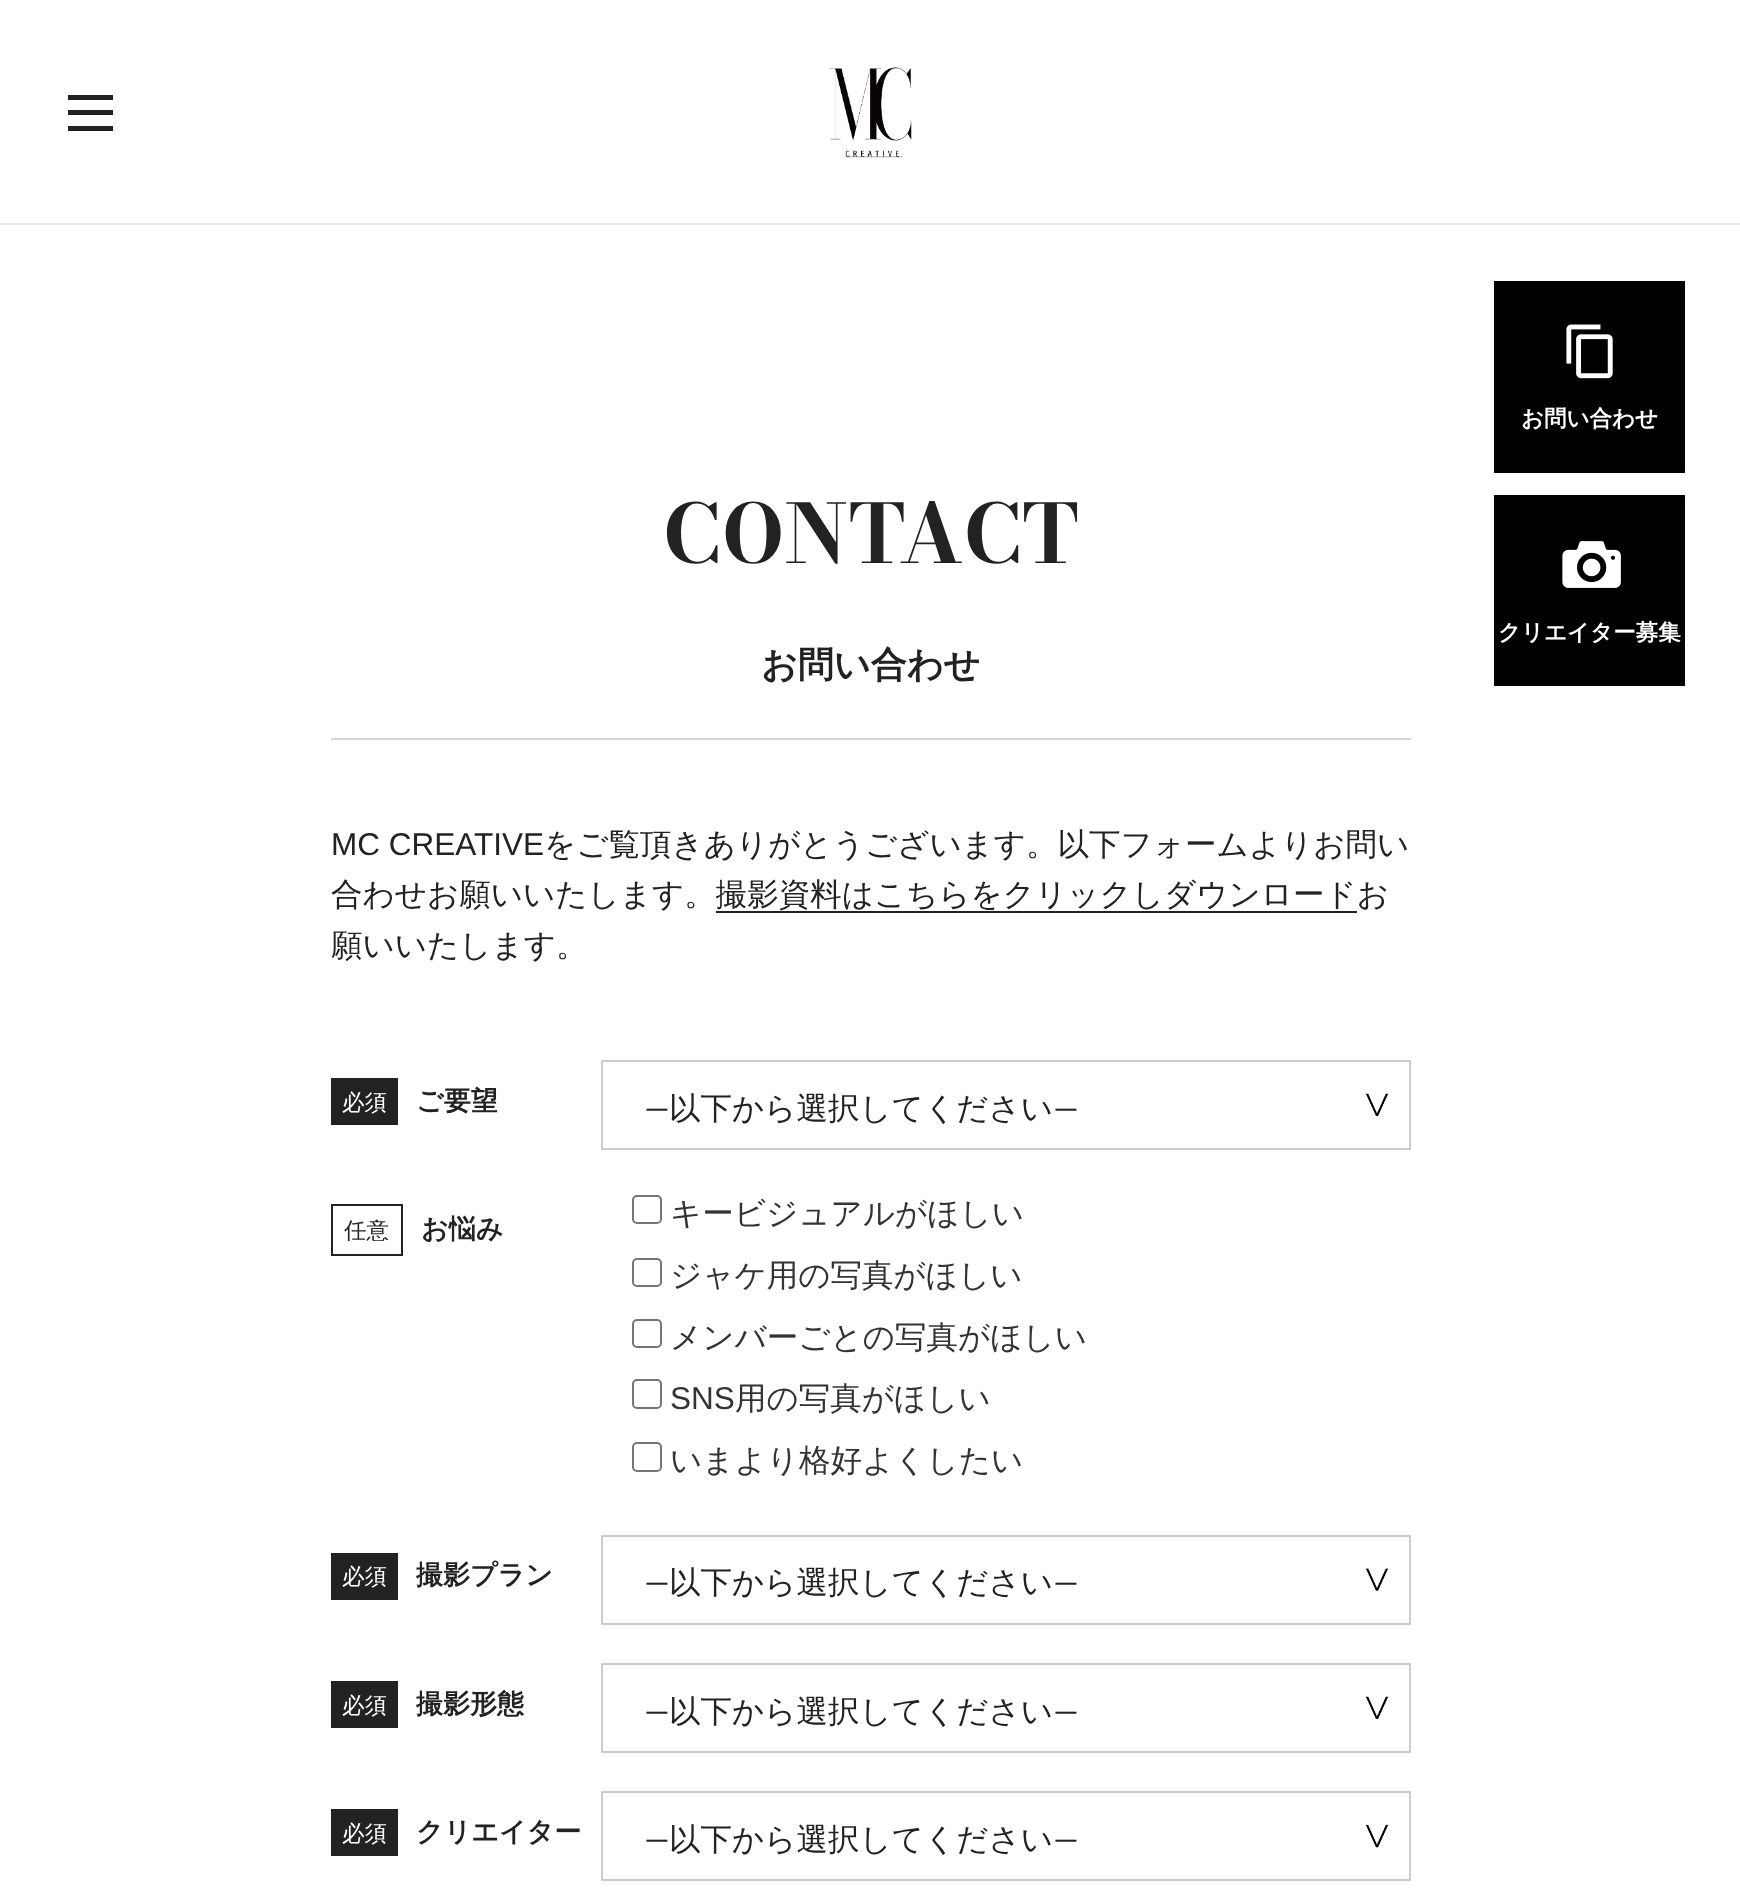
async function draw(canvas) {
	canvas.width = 1740;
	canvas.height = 1900;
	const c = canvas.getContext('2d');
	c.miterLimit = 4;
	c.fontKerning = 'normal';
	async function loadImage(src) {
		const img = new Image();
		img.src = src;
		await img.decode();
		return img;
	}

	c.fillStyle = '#fff';
	c.fillRect(0, 0, 1740, 1900);
	for (const [x, y, w, h, color] of [
		[0, 223, 1740, 2, '#e8e8e8'],
		[68, 95, 45, 5, '#222'],
		[68, 110, 45, 5, '#222'],
		[68, 126, 45, 5, '#222'],
	]) {
		c.fillStyle = color;
		c.fillRect(x, y, w, h);
	}
	c.drawImage(await loadImage('img1.png'), 830, 67, 82, 91);
	c.font = 'bold 81px Bodoni Moda';
	c.fillText('CONTACT', 663, 563);
	c.fillStyle = '#d5d5d5';
	c.fillRect(331, 738, 1080, 2);
	c.font = 'bold 36px WenQuanYi Zen Hei';
	c.fillStyle = '#222';
	c.fillText('お問い合わせ', 761, 677);
	c.font = '31.5px Liberation Sans';
	c.fillText('MC CREATIVE', 331, 855);
	c.font = '500 31.5px WenQuanYi Zen Hei';
	c.fillText('をご覧頂きありがとうございます。以下フォームよりお問い', 544, 855);
	c.fillText('合わせお願いいたします。撮影資料はこちらをクリックしダウンロードお', 331, 905);
	c.fillRect(716, 911, 641, 2);
	c.fillText('願いいたします。', 331, 956);
	c.fillRect(331, 1078, 67, 47);
	c.font = '500 22.5px WenQuanYi Zen Hei';
	c.fillStyle = '#fff';
	c.fillText('必須', 342, 1110);
	c.font = 'bold 27px WenQuanYi Zen Hei';
	c.fillStyle = '#222';
	c.fillText('ご要望', 416, 1110);
	c.drawImage(await loadImage('img2.png'), 1365, 1093, 24, 23);
	c.strokeStyle = '#ccc';
	c.lineWidth = 2;
	c.strokeRect(602, 1061, 808, 88);
	c.font = '31.5px Lato';
	c.fillText('—', 644, 1119);
	c.font = '500 31.5px WenQuanYi Zen Hei';
	c.fillText('以下から選択してください', 669, 1119);
	c.font = '31.5px Lato';
	c.fillText('—', 1053, 1119);
	c.strokeStyle = '#222';
	c.strokeRect(332, 1205, 70, 50);
	c.font = '500 22.5px WenQuanYi Zen Hei';
	c.fillText('任意', 344, 1238);
	c.font = 'bold 27px WenQuanYi Zen Hei';
	c.fillText('お悩み', 421, 1238);
	c.beginPath();
	c.roundRect(633, 1196, 28, 27, 4);
	c.strokeStyle = '#767676';
	c.stroke();
	c.font = '500 31.5px WenQuanYi Zen Hei';
	c.fillStyle = '#333';
	c.fillText('キービジュアルがほしい', 670, 1224);
	c.beginPath();
	c.roundRect(633, 1259, 28, 27, 4);
	c.stroke();
	c.fillText('ジャケ用の写真がほしい', 670, 1286);
	c.beginPath();
	c.roundRect(633, 1320, 28, 27, 4);
	c.stroke();
	c.fillText('メンバーごとの写真がほしい', 670, 1348);
	c.beginPath();
	c.roundRect(633, 1380, 28, 28, 4);
	c.stroke();
	c.font = '31.5px Liberation Sans';
	c.fillText('SNS', 670, 1409);
	c.font = '500 31.5px WenQuanYi Zen Hei';
	c.fillText('用の写真がほしい', 735, 1409);
	c.beginPath();
	c.roundRect(633, 1443, 28, 28, 4);
	c.stroke();
	c.fillText('いまより格好よくしたい', 670, 1471);
	c.fillStyle = '#222';
	c.fillRect(331, 1553, 67, 47);
	c.font = '500 22.5px WenQuanYi Zen Hei';
	c.fillStyle = '#fff';
	c.fillText('必須', 342, 1584);
	c.font = 'bold 27px WenQuanYi Zen Hei';
	c.fillStyle = '#222';
	c.fillText('撮影プラン', 416, 1584);
	c.drawImage(await loadImage('img3.png'), 1365, 1568, 24, 23);
	c.strokeStyle = '#ccc';
	c.strokeRect(602, 1536, 808, 88);
	c.font = '31.5px Lato';
	c.fillText('—', 644, 1593);
	c.font = '500 31.5px WenQuanYi Zen Hei';
	c.fillText('以下から選択してください', 669, 1593);
	c.font = '31.5px Lato';
	c.fillText('—', 1053, 1593);
	c.fillRect(331, 1681, 67, 47);
	c.font = '500 22.5px WenQuanYi Zen Hei';
	c.fillStyle = '#fff';
	c.fillText('必須', 342, 1713);
	c.font = 'bold 27px WenQuanYi Zen Hei';
	c.fillStyle = '#222';
	c.fillText('撮影形態', 416, 1713);
	c.drawImage(await loadImage('img2.png'), 1365, 1696, 24, 23);
	c.strokeRect(602, 1664, 808, 88);
	c.font = '31.5px Lato';
	c.fillText('—', 644, 1722);
	c.font = '500 31.5px WenQuanYi Zen Hei';
	c.fillText('以下から選択してください', 669, 1722);
	c.font = '31.5px Lato';
	c.fillText('—', 1053, 1722);
	c.fillRect(331, 1809, 67, 47);
	c.font = '500 22.5px WenQuanYi Zen Hei';
	c.fillStyle = '#fff';
	c.fillText('必須', 342, 1841);
	c.font = 'bold 27px WenQuanYi Zen Hei';
	c.fillStyle = '#222';
	c.fillText('クリエイター', 416, 1841);
	c.drawImage(await loadImage('img4.png'), 1365, 1824, 24, 24);
	c.strokeRect(602, 1792, 808, 88);
	c.font = '31.5px Lato';
	c.fillText('—', 644, 1850);
	c.font = '500 31.5px WenQuanYi Zen Hei';
	c.fillText('以下から選択してください', 669, 1850);
	c.font = '31.5px Lato';
	c.fillText('—', 1053, 1850);
	c.fillStyle = '#000';
	c.beginPath();
	c.rect(1495, 282, 189, 190);
	c.fill();
	c.strokeStyle = '#020202';
	c.stroke();
	c.drawImage(await loadImage('img5.png'), 1566, 324, 47, 55);
	c.font = 'bold 22.5px WenQuanYi Zen Hei';
	c.fillStyle = '#fff';
	c.fillText('お問い合わせ', 1521, 426);
	c.fillStyle = '#000';
	c.beginPath();
	c.rect(1495, 496, 189, 189);
	c.fill();
	c.stroke();
	c.drawImage(await loadImage('img6.png'), 1562, 541, 59, 47);
	c.fillStyle = '#fff';
	c.fillText('クリエイター募集', 1498, 640);
}

draw(document.querySelector('canvas'));
